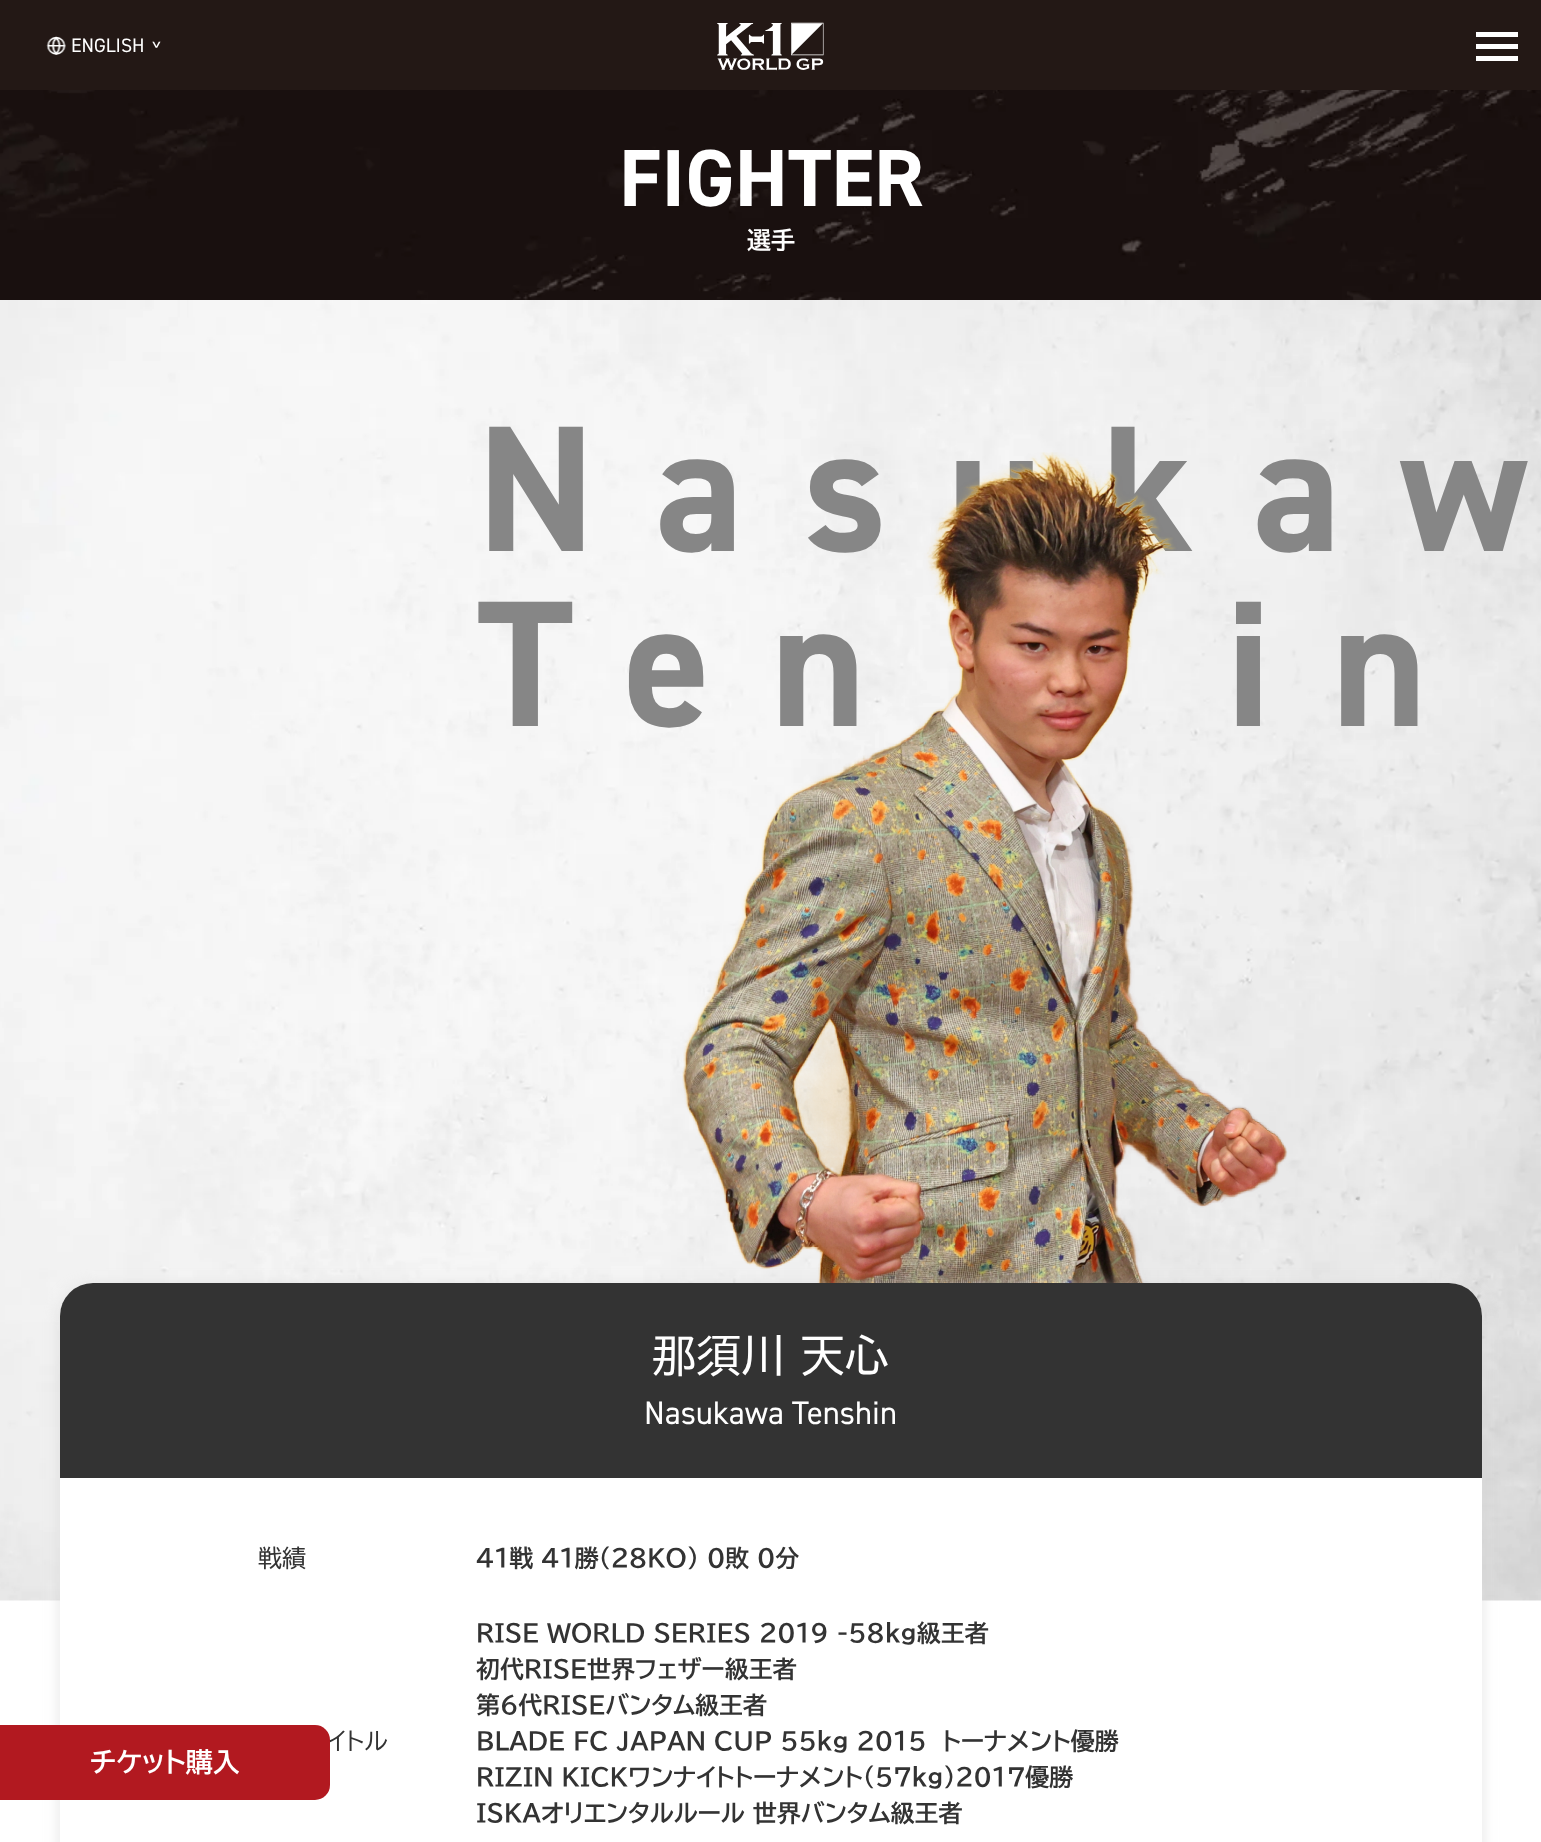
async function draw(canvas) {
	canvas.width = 1541;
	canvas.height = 1842;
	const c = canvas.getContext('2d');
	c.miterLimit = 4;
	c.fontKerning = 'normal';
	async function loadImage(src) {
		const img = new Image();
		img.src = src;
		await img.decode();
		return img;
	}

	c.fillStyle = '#fff';
	c.fillRect(0, 0, 1541, 1842);
	c.fillStyle = '#231815';
	c.fillRect(0, 0, 1541, 90);
	c.drawImage(await loadImage('img1.png'), 46, 36, 20, 19);
	c.font = '19.5px "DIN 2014"';
	c.fillStyle = '#fff';
	c.fillText('ENGLISH', 71, 52);
	c.font = '18px "DIN 2014"';
	c.save();
	c.translate(150, 40);
	c.rotate(90 * Math.PI / 180);
	c.fillText('>', 0, 0);
	c.restore();
	c.drawImage(await loadImage('img3.png'), 717, 23, 107, 48);
	c.drawImage(await loadImage('img4.png'), 791, 23, 32, 32);
	c.drawImage(await loadImage('img2.png'), 791, 22, 33, 34);
	for (const [x, y, w, h, color] of [
		[1476, 32, 42, 5, '#fff'],
		[1476, 44, 42, 5, '#fff'],
		[1476, 56, 42, 5, '#fff'],
	]) {
		c.fillStyle = color;
		c.fillRect(x, y, w, h);
	}
	c.drawImage(await loadImage('img6.png'), 0, 300, 1541, 1301);
	c.letterSpacing = '60.25px';
	c.font = 'bold 180.25px "DIN 2014"';
	c.fillStyle = '#868686';
	for (const [text, x, y] of [
		['Nasukaw', 477, 551],
		['Ten', 477, 726],
		['in', 1225, 726],
	]) {
		c.fillText(text, x, y);
	}
	c.drawImage(await loadImage('img7.png'), 682, 452, 606, 831);
	c.fillStyle = '#d3d3d394';
	c.filter = 'blur(7.5px)';
	c.beginPath();
	c.roundRect(60, 1286, 1422, 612, 33);
	c.fill();
	c.filter = 'none';
	c.fillStyle = '#fff';
	c.beginPath();
	c.roundRect(60, 1283, 1422, 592, 33);
	c.fill();
	c.letterSpacing = '0px';
	c.font = '24px BIZ UDPGothic';
	c.fillStyle = '#333';
	c.fillText('イトル', 327, 1750);
	c.fillStyle = '#b21920';
	c.beginPath();
	c.roundRect(0, 1725, 330, 75, [0, 15, 15, 0]);
	c.fill();
	c.font = 'bold 27px BIZ UDPGothic';
	c.fillStyle = '#fff';
	c.fillText('チケット購入', 90, 1772);
	c.drawImage(await loadImage('img5.png'), 0, 90, 1541, 210);
	c.font = 'bold 81px "DIN 2014"';
	c.fillText('FIGHTER', 619, 206);
	c.font = 'bold 24px BIZ UDPGothic';
	c.fillText('選手', 747, 249);
	c.fillStyle = '#333';
	c.beginPath();
	c.roundRect(60, 1283, 1422, 195, [33, 33, 0, 0]);
	c.fill();
	c.font = '44.5px BIZ UDPGothic';
	c.fillStyle = '#fff';
	c.fillText('那須川 天心', 652, 1372);
	c.font = '32.5px "DIN 2014"';
	c.fillText('Nasukawa Tenshin', 644, 1424);
	c.font = '24px BIZ UDPGothic';
	c.fillStyle = '#333';
	c.fillText('戦績', 258, 1567);
	c.font = 'bold 24px BIZ UDPGothic';
	for (const [text, x, y] of [
		['41戦 41勝(28KO) 0敗 0分', 476, 1567],
		['RISE WORLD SERIES 2019 -58kg級王者', 476, 1642],
		['初代RISE世界フェザー級王者', 476, 1678],
		['第6代RISEバンタム級王者', 476, 1714],
		['BLADE FC JAPAN CUP 55kg 2015　トーナメント優勝', 476, 1750],
		['RIZIN KICKワンナイトトーナメント（57kg）2017優勝', 476, 1786],
		['ISKAオリエンタルルール 世界バンタム級王者', 476, 1822],
	]) {
		c.fillText(text, x, y);
	}
}

draw(document.querySelector('canvas'));
